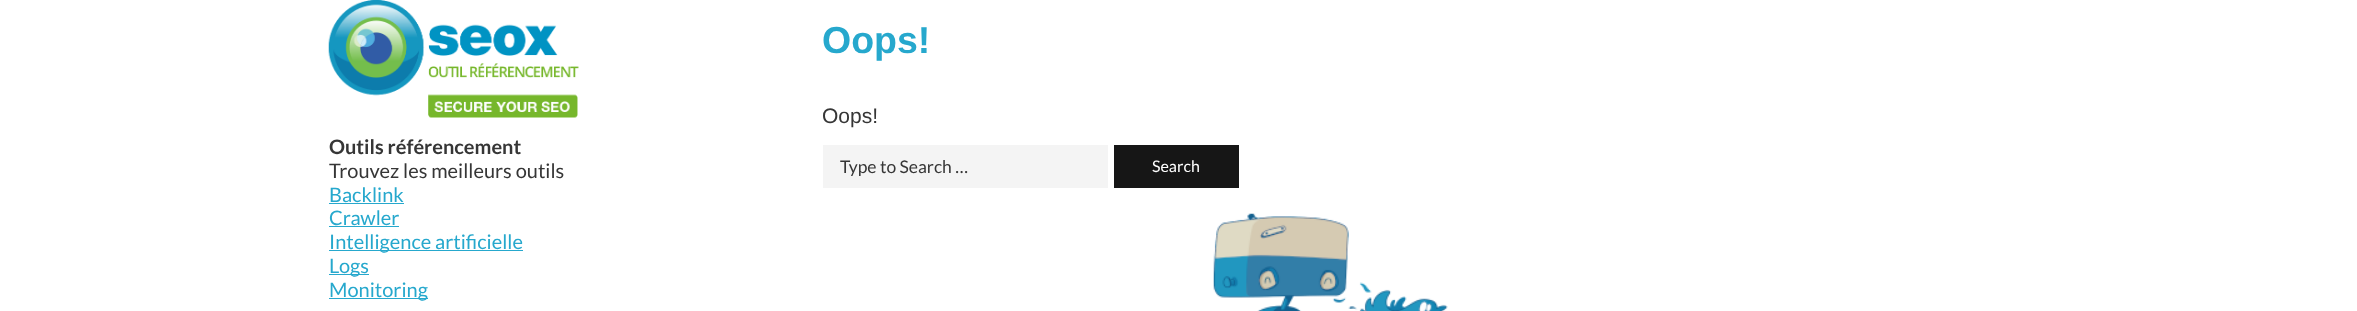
async function draw(canvas) {
	canvas.width = 2357;
	canvas.height = 311;
	const c = canvas.getContext('2d');
	c.miterLimit = 4;
	c.fontKerning = 'normal';
	async function loadImage(src) {
		const img = new Image();
		img.src = src;
		await img.decode();
		return img;
	}

	c.fillStyle = '#fff';
	c.fillRect(0, 0, 2357, 311);
	c.font = 'bold 37.5px Liberation Sans';
	c.fillStyle = '#26a8cd';
	c.fillText('Oops!', 822, 53);
	c.font = '21px Liberation Sans';
	c.fillStyle = '#363636';
	c.fillText('Oops!', 822, 123);
	c.fillStyle = '#f4f4f4';
	c.fillRect(823, 145, 285, 43);
	c.font = '17.5px Lato';
	c.fillStyle = '#363636';
	c.fillText('Type to Search …', 840, 173);
	c.fillStyle = '#161616';
	c.fillRect(1114, 145, 125, 43);
	c.font = '16px Lato';
	c.fillStyle = '#fff';
	c.fillText('Search', 1152, 172);
	c.drawImage(await loadImage('img1.png'), 1213, 213, 235, 98);
	c.drawImage(await loadImage('img2.png'), 328, 0, 251, 118);
	c.font = 'bold 20px Lato';
	c.fillStyle = '#363636';
	c.fillText('Outils référencement', 329, 154);
	c.font = '20px Lato';
	c.fillText('Trouvez les meilleurs outils', 329, 178);
	c.fillStyle = '#26a8cd';
	c.fillText('Backlink', 329, 202);
	c.fillRect(329, 203, 75, 1);
	c.fillText('Crawler', 329, 225);
	c.fillRect(329, 226, 70, 1);
	c.fillRect(329, 250, 194, 1);
	c.fillText('Intelligence artificielle', 329, 249);
	c.fillRect(329, 274, 40, 1);
	c.fillText('Logs', 329, 273);
	c.fillRect(329, 298, 99, 1);
	c.fillText('Monitoring', 329, 297);
}

draw(document.querySelector('canvas'));
